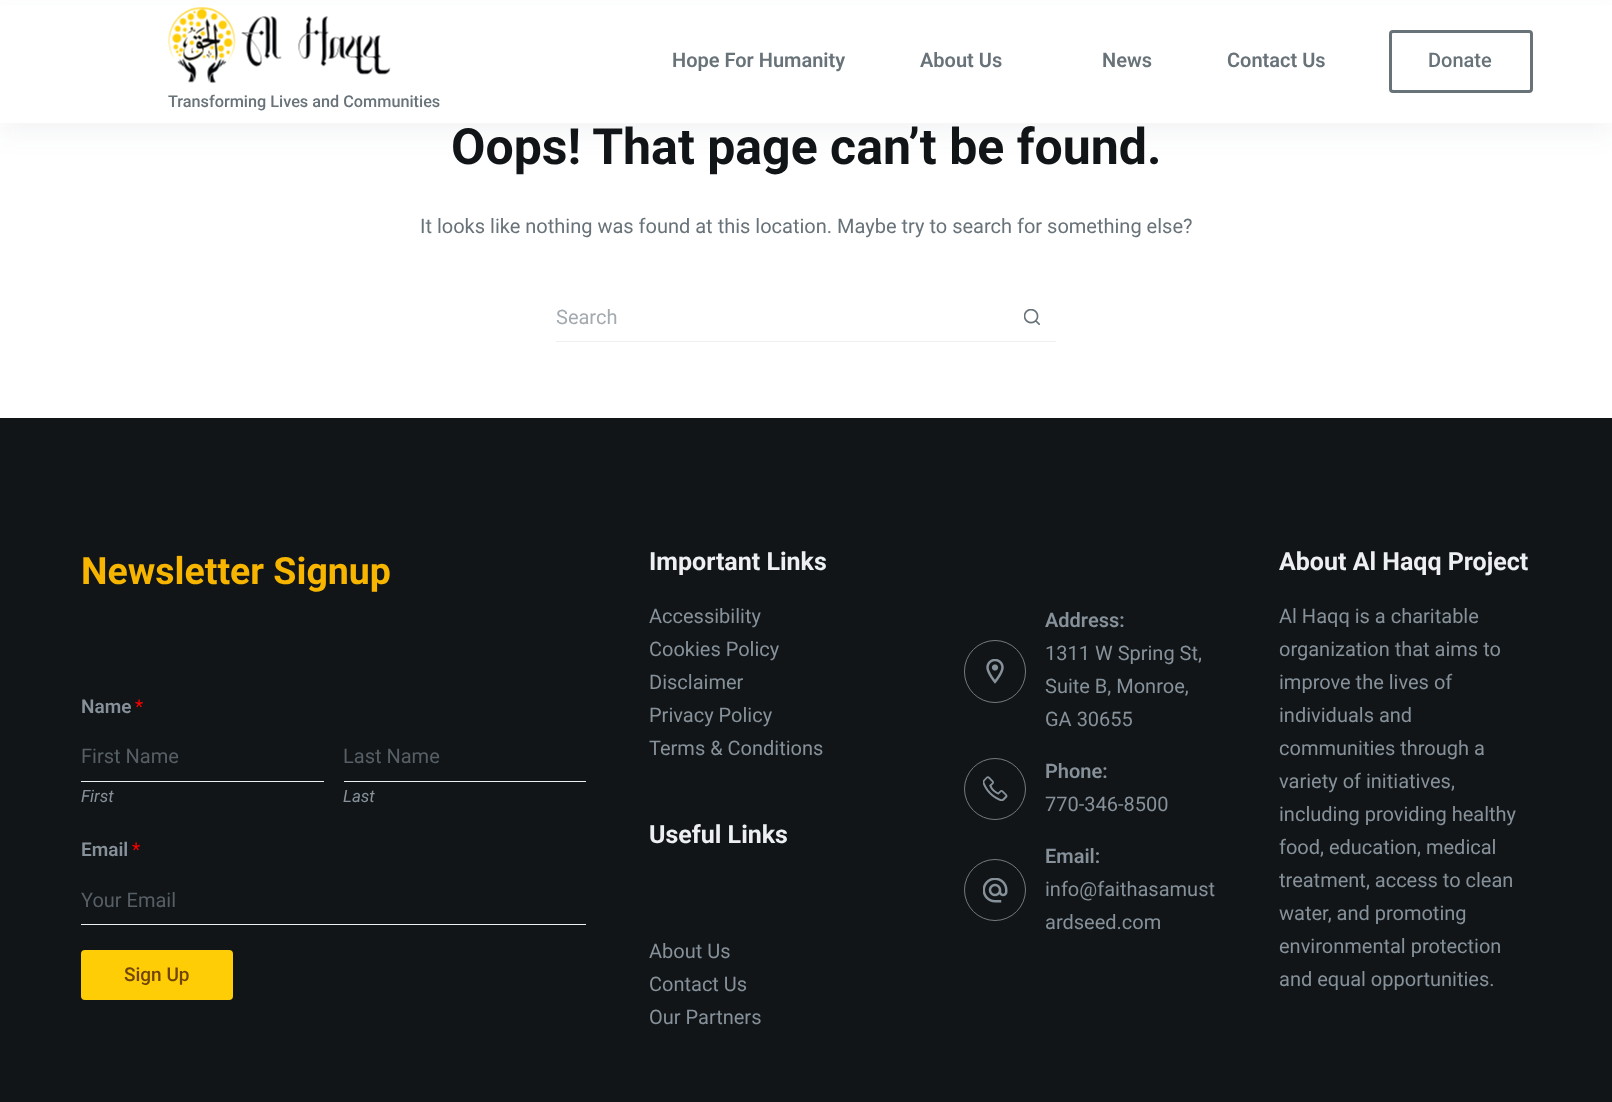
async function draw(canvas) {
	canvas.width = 1612;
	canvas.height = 1102;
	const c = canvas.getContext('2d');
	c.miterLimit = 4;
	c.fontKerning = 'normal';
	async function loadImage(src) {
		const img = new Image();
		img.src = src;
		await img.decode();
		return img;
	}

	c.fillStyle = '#fff';
	c.fillRect(0, 0, 1612, 1102);
	c.fillStyle = '#2b3d4f0d';
	c.filter = 'blur(12.5px)';
	c.beginPath();
	c.rect(0, 13, 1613, 122);
	c.fill();
	c.filter = 'none';
	c.fillStyle = '#fff';
	c.fillRect(0, 5, 1612, 118);
	c.font = '600 20px Roboto';
	c.fillStyle = '#687279';
	for (const [text, x, y] of [
		['Hope For Humanity', 672, 67],
		['About Us', 920, 67],
		['News', 1102, 67],
		['Contact Us', 1227, 67],
	]) {
		c.fillText(text, x, y);
	}
	c.beginPath();
	c.roundRect(1390.5, 31.5, 141, 60, 2.5);
	c.strokeStyle = '#687279';
	c.lineWidth = 3;
	c.stroke();
	c.font = '500 20px Roboto';
	c.fillText('Donate', 1428, 67);
	c.drawImage(await loadImage('img1.png'), 168, 7, 223, 76);
	c.font = '500 16.25px Roboto';
	c.fillText('Transforming Lives and Communities', 168, 107);
	c.font = 'bold 50px Roboto';
	c.fillStyle = '#111518';
	c.fillText('Oops! That page can’t be found.', 451, 164);
	c.font = '20px Roboto';
	c.fillStyle = '#687279';
	c.fillText('It looks like nothing was found at this location. Maybe try to search for something else?', 420, 233);
	c.fillStyle = '#edeff2';
	c.fillRect(556, 341, 500, 1);
	c.fillStyle = '#a4aaaf';
	c.fillText('Search', 556, 324);
	c.drawImage(await loadImage('img2.png'), 1024, 309, 16, 16);
	c.fillStyle = '#111518';
	c.fillRect(0, 418, 1612, 684);
	c.font = 'bold 37.5px Roboto';
	c.fillStyle = '#f7b500';
	c.fillText('Newsletter Signup', 81, 584);
	c.font = '600 19px Roboto';
	c.fillStyle = '#86919a';
	c.fillText('Name', 81, 713);
	c.font = '19px Roboto';
	c.fillStyle = '#f00';
	c.fillText('*', 135, 713);
	c.fillStyle = '#edeff2';
	c.fillRect(81, 781, 243, 1);
	c.font = '20px Roboto';
	c.fillStyle = '#575f66';
	c.fillText('First Name', 81, 763);
	c.font = 'italic 17px Roboto';
	c.fillStyle = '#86919a';
	c.fillText('First', 81, 802);
	c.fillStyle = '#edeff2';
	c.fillRect(344, 781, 242, 1);
	c.font = '20px Roboto';
	c.fillStyle = '#575f66';
	c.fillText('Last Name', 343, 763);
	c.font = 'italic 17px Roboto';
	c.fillStyle = '#86919a';
	c.fillText('Last', 343, 802);
	c.font = '600 19px Roboto';
	c.fillText('Email', 81, 856);
	c.font = '19px Roboto';
	c.fillStyle = '#f00';
	c.fillText('*', 132, 856);
	c.fillStyle = '#edeff2';
	c.fillRect(81, 924, 505, 1);
	c.font = '20px Roboto';
	c.fillStyle = '#575f66';
	c.fillText('Your Email', 81, 907);
	c.fillStyle = '#ffcd05';
	c.beginPath();
	c.roundRect(81, 950, 152, 50, 4);
	c.fill();
	c.font = '500 19px Roboto';
	c.fillStyle = '#714508';
	c.fillText('Sign Up', 124, 981);
	c.font = 'bold 25px Roboto';
	c.fillStyle = '#edeff2';
	c.fillText('Important Links', 649, 570);
	c.font = '20px Roboto';
	c.fillStyle = '#86919a';
	for (const [text, x, y] of [
		['Accessibility', 649, 623],
		['Cookies Policy', 649, 656],
		['Disclaimer', 649, 689],
		['Privacy Policy', 649, 722],
		['Terms & Conditions', 649, 755],
	]) {
		c.fillText(text, x, y);
	}
	c.font = 'bold 25px Roboto';
	c.fillStyle = '#edeff2';
	c.fillText('Useful Links', 649, 843);
	c.font = '20px Roboto';
	c.fillStyle = '#86919a';
	for (const [text, x, y] of [
		['About Us', 649, 958],
		['Contact Us', 649, 991],
		['Our Partners', 649, 1024],
	]) {
		c.fillText(text, x, y);
	}
	c.beginPath();
	c.roundRect(964.5, 640.5, 61, 62, 30.5);
	c.strokeStyle = '#767a7e';
	c.lineWidth = 1;
	c.stroke();
	c.drawImage(await loadImage('img3.png'), 986, 659, 18, 25);
	c.font = '600 20px Roboto';
	c.fillText('Address:', 1045, 627);
	c.font = '20px Roboto';
	for (const [text, x, y] of [
		['1311 W Spring St,', 1045, 660],
		['Suite B, Monroe,', 1045, 693],
		['GA 30655', 1045, 726],
	]) {
		c.fillText(text, x, y);
	}
	c.beginPath();
	c.arc(995, 789, 30.5, 0, 2 * Math.PI);
	c.stroke();
	c.drawImage(await loadImage('img4.png'), 983, 776, 25, 25);
	c.font = '600 20px Roboto';
	c.fillText('Phone:', 1045, 778);
	c.font = '20px Roboto';
	c.fillText('770-346-8500', 1045, 811);
	c.beginPath();
	c.arc(995, 890, 30.5, 0, 2 * Math.PI);
	c.stroke();
	c.drawImage(await loadImage('img5.png'), 983, 878, 25, 25);
	c.font = '600 20px Roboto';
	c.fillText('Email:', 1045, 863);
	c.font = '20px Roboto';
	c.fillText('info@faithasamust', 1045, 896);
	c.fillText('ardseed.com', 1045, 929);
	c.font = 'bold 25px Roboto';
	c.fillStyle = '#edeff2';
	c.fillText('About Al Haqq Project', 1279, 570);
	c.font = '20px Roboto';
	c.fillStyle = '#86919a';
	for (const [text, x, y] of [
		['Al Haqq is a charitable', 1279, 623],
		['organization that aims to', 1279, 656],
		['improve the lives of', 1279, 689],
		['individuals and', 1279, 722],
		['communities through a', 1279, 755],
		['variety of initiatives,', 1279, 788],
		['including providing healthy', 1279, 821],
		['food, education, medical', 1279, 854],
		['treatment, access to clean', 1279, 887],
		['water, and promoting', 1279, 920],
		['environmental protection', 1279, 953],
		['and equal opportunities.', 1279, 986],
	]) {
		c.fillText(text, x, y);
	}
}

draw(document.querySelector('canvas'));
